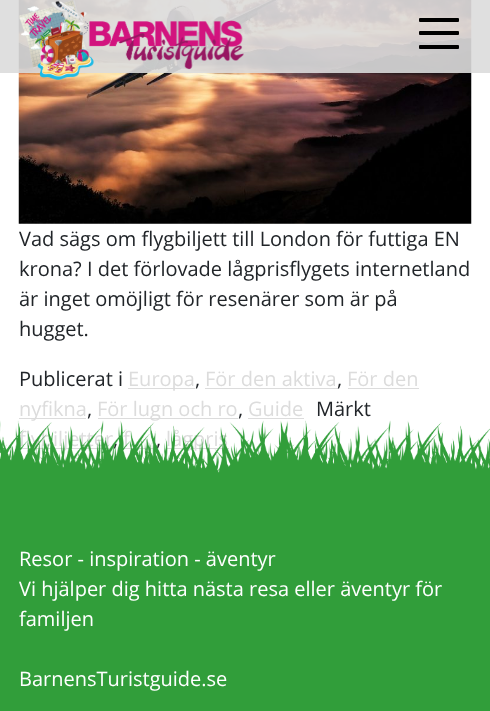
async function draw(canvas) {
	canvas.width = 490;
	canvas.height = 711;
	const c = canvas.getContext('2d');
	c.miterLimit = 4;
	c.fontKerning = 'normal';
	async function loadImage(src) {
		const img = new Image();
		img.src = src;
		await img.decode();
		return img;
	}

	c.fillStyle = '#fff';
	c.fillRect(0, 0, 490, 711);
	c.drawImage(await loadImage('img2.png'), 18, 0, 454, 224);
	c.fillStyle = '#dcdcdce6';
	c.fillRect(0, 0, 490, 73);
	c.drawImage(await loadImage('img1.png'), 19, 0, 225, 80);
	c.fillStyle = '#000';
	c.beginPath();
	c.roundRect(419, 18, 40, 4, 1);
	c.fill();
	c.beginPath();
	c.roundRect(419, 31, 40, 4, 1);
	c.fill();
	c.beginPath();
	c.roundRect(419, 45, 40, 4, 1);
	c.fill();
	c.font = '20px Open Sans';
	c.fillStyle = '#212529';
	for (const [text, x, y] of [
		['Vad sägs om flygbiljett till London för futtiga EN', 19, 246],
		['krona? I det förlovade lågprisflygets internetland', 19, 276],
		['är inget omöjligt för resenärer som är på', 19, 306],
		['hugget.', 19, 336],
		['Publicerat i', 19, 386],
	]) {
		c.fillText(text, x, y);
	}
	c.fillStyle = '#dcdcdc';
	c.fillRect(128, 388, 67, 1);
	c.fillText('Europa', 128, 386);
	c.fillStyle = '#212529';
	c.fillText(',', 195, 386);
	c.fillStyle = '#dcdcdc';
	c.fillText('För den aktiva', 205, 386);
	c.fillRect(205, 388, 133, 1);
	c.fillStyle = '#212529';
	c.fillText(',', 337, 386);
	c.fillStyle = '#dcdcdc';
	c.fillRect(348, 388, 71, 1);
	c.fillText('För den', 347, 386);
	c.fillRect(19, 418, 67, 1);
	c.fillText('nyfikna', 19, 416);
	c.fillStyle = '#212529';
	c.fillText(',', 87, 416);
	c.fillStyle = '#dcdcdc';
	c.fillRect(98, 418, 140, 1);
	c.fillText('För lugn och ro', 97, 416);
	c.fillStyle = '#212529';
	c.fillText(',', 238, 416);
	c.fillStyle = '#dcdcdc';
	c.fillRect(248, 418, 56, 1);
	c.fillText('Guide', 248, 416);
	c.fillStyle = '#212529';
	c.fillText('Märkt', 316, 416);
	c.fillStyle = '#dcdcdc';
	c.fillRect(19, 448, 94, 1);
	c.fillText('flybiljetter', 19, 446);
	c.fillStyle = '#212529';
	c.fillText(',', 113, 446);
	c.fillStyle = '#dcdcdc';
	c.fillText('f', 123, 446);
	c.fillStyle = '#212529';
	c.fillText(',', 156, 446);
	c.fillStyle = '#dcdcdc';
	c.fillRect(124, 448, 32, 1);
	c.fillRect(166, 448, 63, 1);
	c.fillText('lågpris', 166, 446);
	c.fillStyle = '#319e3a';
	c.fillRect(0, 484, 490, 227);
	c.drawImage(await loadImage('img3.png'), 0, 420, 490, 64);
	c.fillStyle = '#fff';
	for (const [text, x, y] of [
		['Resor - inspiration - äventyr', 19, 566],
		['Vi hjälper dig hitta nästa resa eller äventyr för', 19, 596],
		['familjen', 19, 626],
		['BarnensTuristguide.se', 19, 686],
	]) {
		c.fillText(text, x, y);
	}
}

draw(document.querySelector('canvas'));
